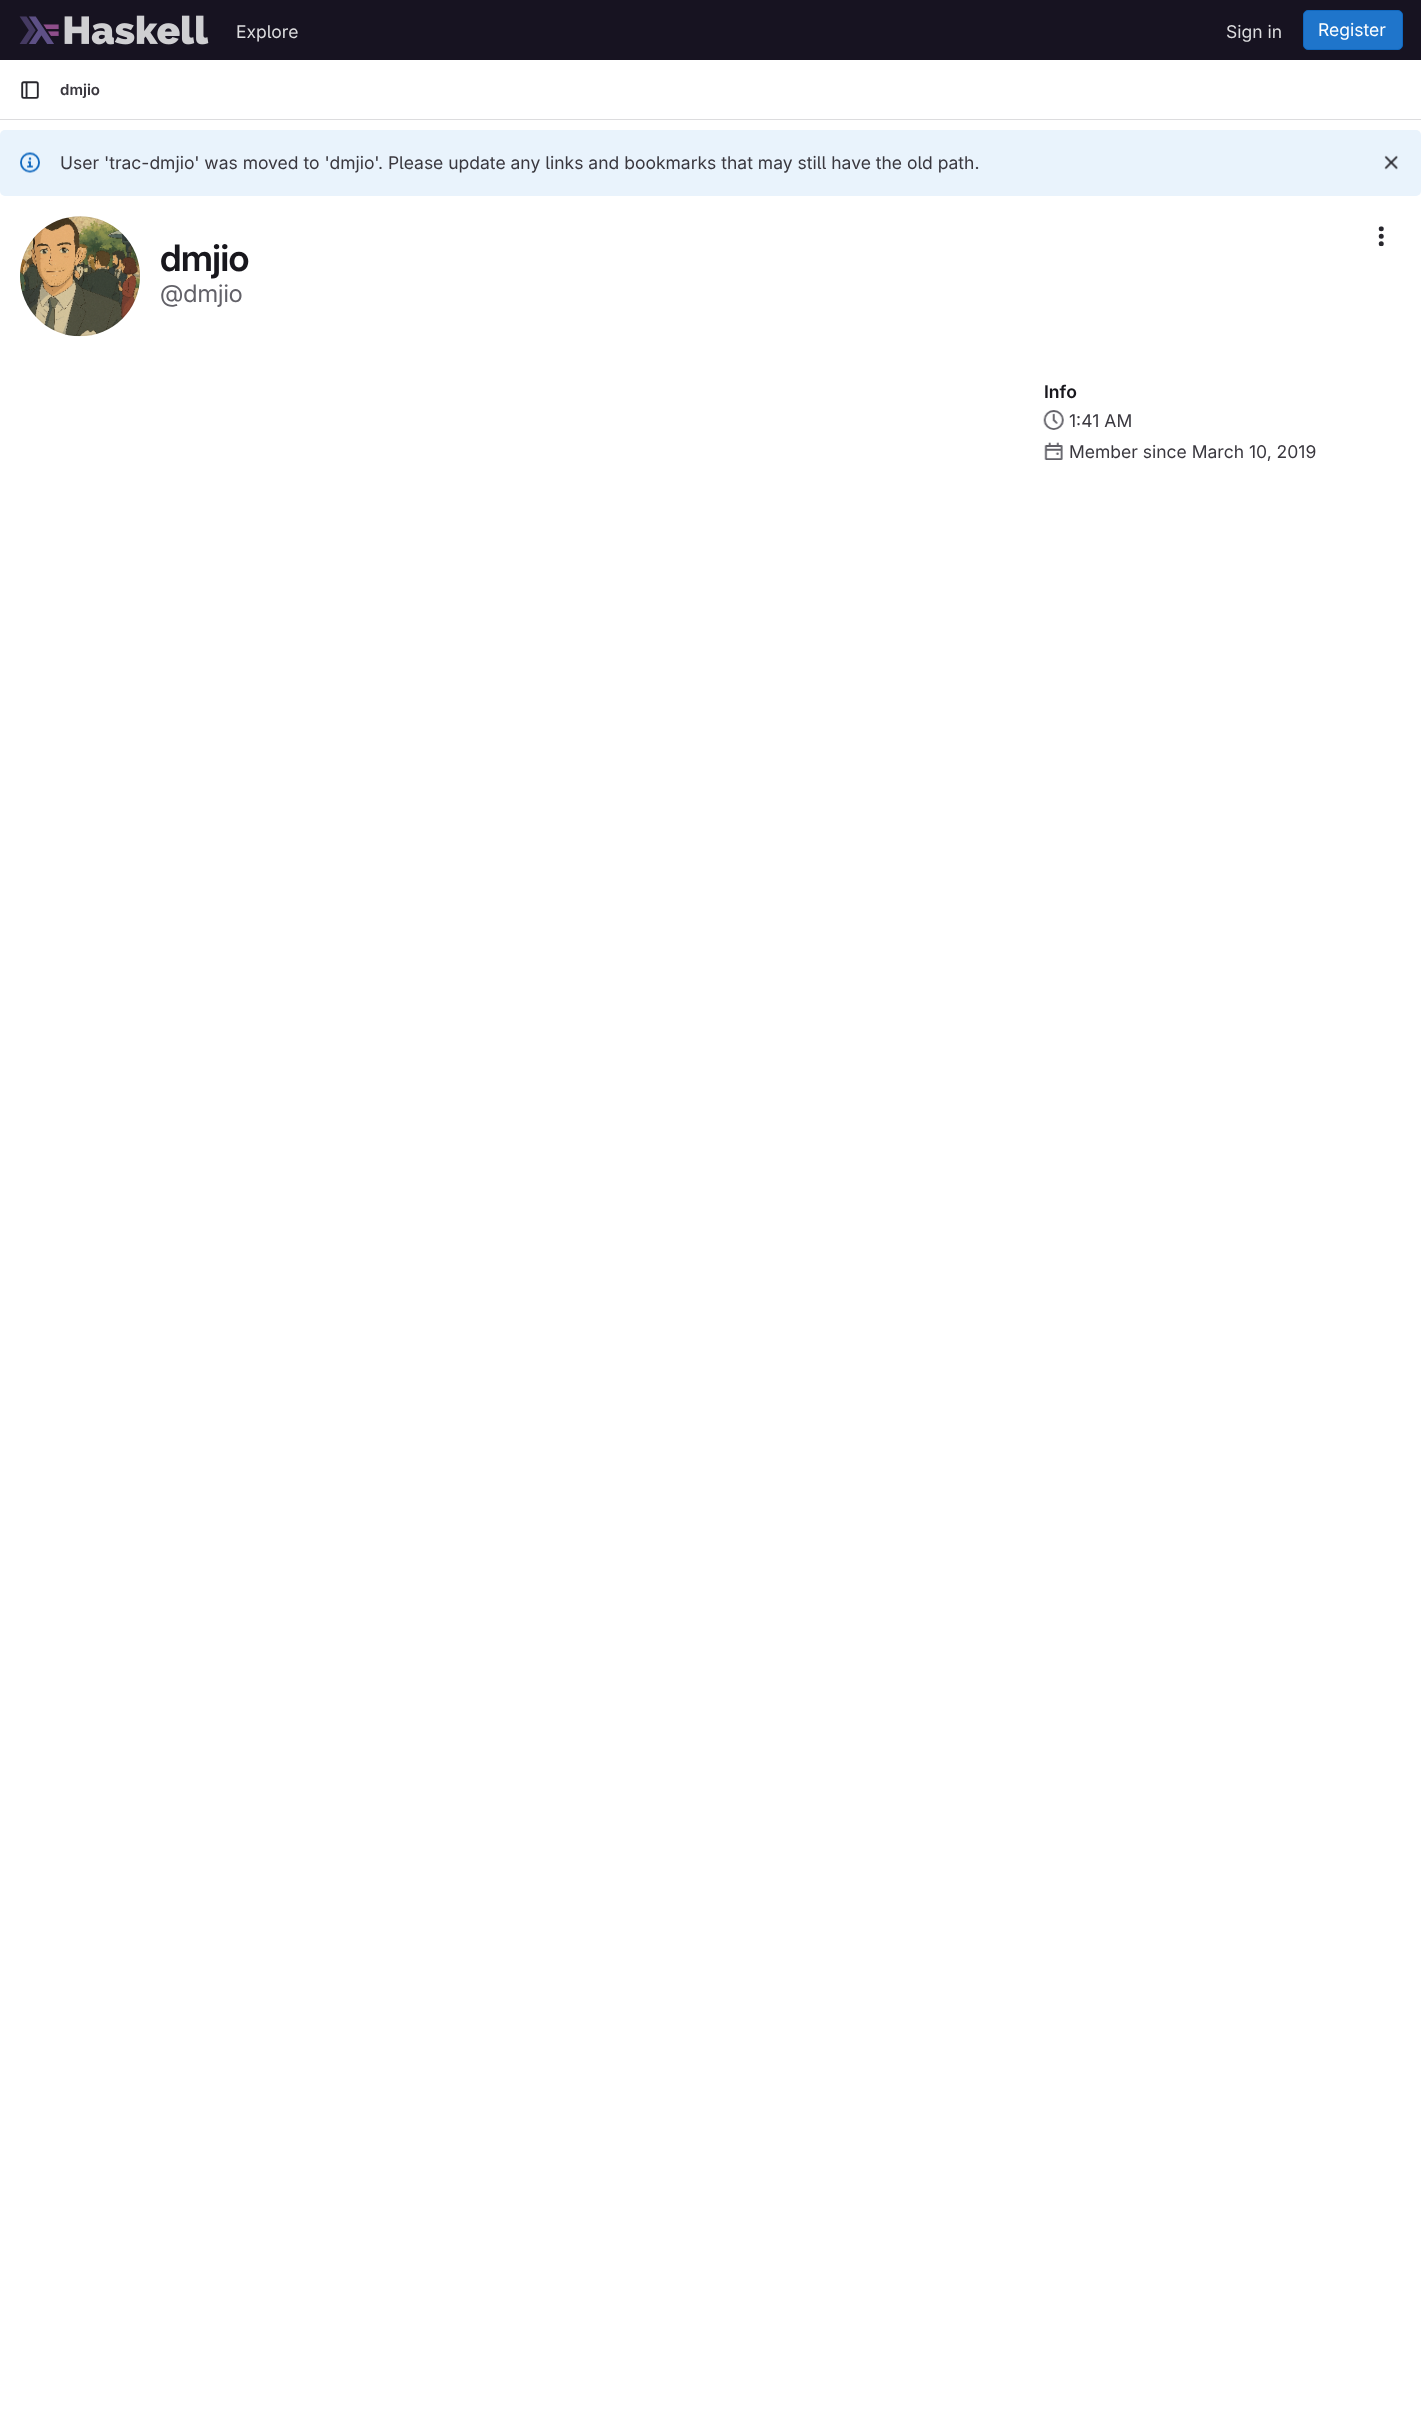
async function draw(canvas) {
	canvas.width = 1421;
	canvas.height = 2417;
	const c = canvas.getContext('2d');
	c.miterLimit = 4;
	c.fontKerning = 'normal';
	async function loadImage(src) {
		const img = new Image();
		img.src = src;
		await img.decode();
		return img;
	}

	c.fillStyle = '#fff';
	c.fillRect(0, 0, 1421, 2417);
	c.fillStyle = '#171321';
	c.fillRect(0, 0, 1421, 60);
	c.drawImage(await loadImage('img1.png'), 19, 15, 190, 30);
	c.font = '17.5px "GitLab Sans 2"';
	c.fillStyle = '#dcdcde';
	c.fillText('Explore', 236, 38);
	c.fillText('Sign in', 1226, 38);
	c.fillStyle = '#1f75cb';
	c.beginPath();
	c.roundRect(1303.5, 10.5, 99, 39, 4.5);
	c.fill();
	c.strokeStyle = '#1068bf';
	c.stroke();
	c.fillStyle = '#fff';
	c.fillText('Register', 1318, 36);
	c.fillStyle = '#dcdcde';
	c.fillRect(0, 119, 1421, 1);
	c.drawImage(await loadImage('img2.png'), 21, 81, 18, 18);
	c.font = '600 15px "GitLab Sans 2"';
	c.fillStyle = '#3a383f';
	c.fillText('dmjio', 60, 95);
	c.fillStyle = '#e9f3fc';
	c.beginPath();
	c.roundRect(0, 130, 1421, 66, 5);
	c.fill();
	c.drawImage(await loadImage('img3.png'), 20, 152, 20, 21);
	c.font = '17.5px "GitLab Sans 2"';
	c.fillStyle = '#3a383f';
	c.fillText('User \'trac-dmjio\' was moved to \'dmjio\'. Please update any links and bookmarks that may still have the old path.', 60, 169);
	c.drawImage(await loadImage('img4.png'), 1384, 155, 14, 15);
	c.drawImage(await loadImage('img5.png'), 1378, 226, 6, 21);
	c.drawImage(await loadImage('img6.png'), 20, 216, 120, 121);
	c.beginPath();
	c.arc(80, 276, 59.5, 0, 2 * Math.PI);
	c.strokeStyle = '#05050614';
	c.stroke();
	c.letterSpacing = '-0.5px';
	c.font = '600 36.5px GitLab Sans';
	c.fillStyle = '#18171d';
	c.fillText('dmjio', 160, 271);
	c.letterSpacing = '0px';
	c.font = '24px GitLab Sans';
	c.fillStyle = '#626168';
	c.fillText('@dmjio', 160, 302);
	c.font = '600 17.5px "GitLab Sans 2"';
	c.fillStyle = '#18171d';
	c.fillText('Info', 1044, 398);
	c.drawImage(await loadImage('img7.png'), 1043, 410, 21, 20);
	c.font = '17.5px "GitLab Sans 2"';
	c.fillStyle = '#3a383f';
	c.fillText('1:41 AM', 1069, 427);
	c.drawImage(await loadImage('img8.png'), 1044, 442, 19, 18);
	c.fillText('Member since March 10, 2019', 1069, 458);
}

draw(document.querySelector('canvas'));
